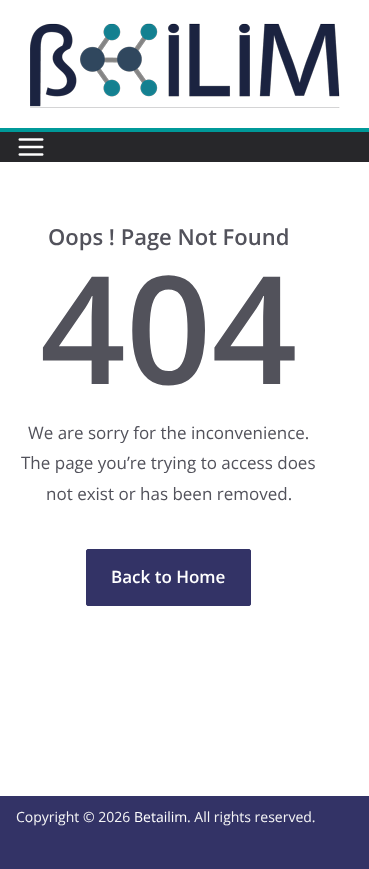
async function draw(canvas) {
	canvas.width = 369;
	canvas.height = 869;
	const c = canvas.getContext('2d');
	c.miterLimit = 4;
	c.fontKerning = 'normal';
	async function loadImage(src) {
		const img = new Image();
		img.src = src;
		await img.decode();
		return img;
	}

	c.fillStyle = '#fff';
	c.fillRect(0, 0, 369, 869);
	c.drawImage(await loadImage('img1.png'), 30, 23, 310, 85);
	c.fillStyle = '#27272a';
	c.fillRect(0, 132, 369, 30);
	c.fillStyle = '#099';
	c.fillRect(0, 128, 369, 4);
	c.drawImage(await loadImage('img2.png'), 18, 138, 26, 18);
	c.font = '600 22px Open Sans';
	c.fillStyle = '#52525b';
	c.fillText('Oops ! Page Not Found', 48, 245);
	c.font = '600 150px Open Sans';
	c.fillText('404', 40, 384);
	c.font = '17px Open Sans';
	for (const [text, x, y] of [
		['We are sorry for the inconvenience.', 28, 439],
		['The page you’re trying to access does', 21, 469],
		['not exist or has been removed.', 46, 500],
	]) {
		c.fillText(text, x, y);
	}
	c.fillStyle = '#336';
	c.beginPath();
	c.roundRect(86.5, 549.5, 164, 56, 1.5);
	c.fill();
	c.strokeStyle = '#336';
	c.stroke();
	c.font = '600 17px Open Sans';
	c.fillStyle = '#fff';
	c.fillText('Back to Home', 111, 583);
	c.fillStyle = '#336';
	c.fillRect(0, 796, 369, 73);
	c.font = '14px Open Sans';
	c.fillStyle = '#f4f4f5';
	c.fillText('Copyright © 2026', 16, 822);
	c.fillStyle = '#fff';
	c.fillText('Betailim', 134, 822);
	c.fillStyle = '#f4f4f5';
	c.fillText('. All rights reserved.', 187, 822);
}

draw(document.querySelector('canvas'));
